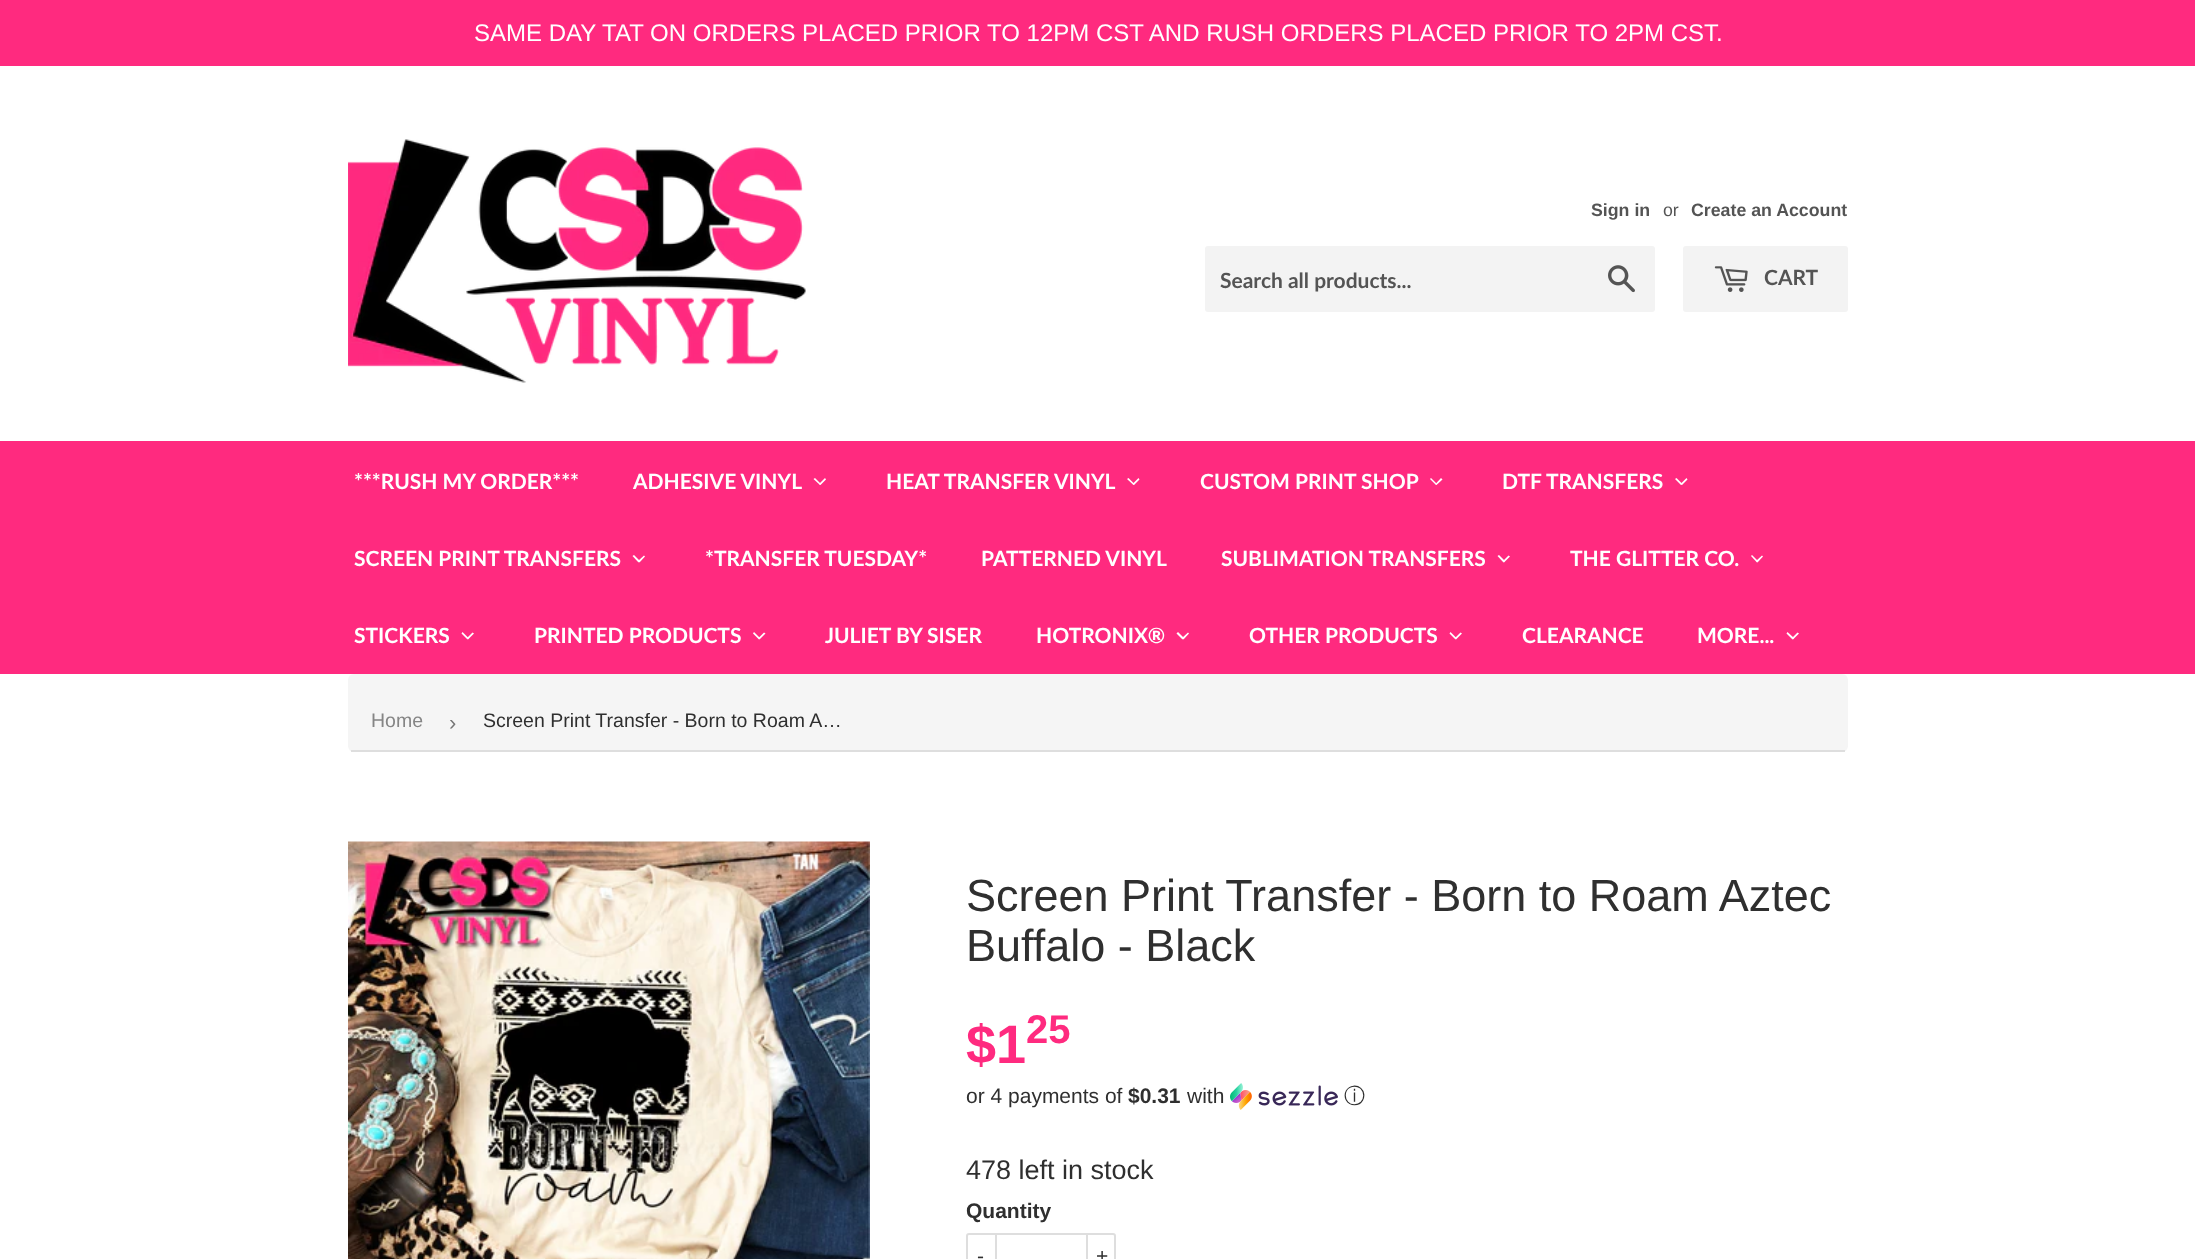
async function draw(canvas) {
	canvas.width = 2195;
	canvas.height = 1259;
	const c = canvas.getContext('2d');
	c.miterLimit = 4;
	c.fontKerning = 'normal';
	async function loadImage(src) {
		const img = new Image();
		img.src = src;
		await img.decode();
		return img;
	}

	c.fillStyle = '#fff';
	c.fillRect(0, 0, 2195, 1259);
	c.fillStyle = '#ff2a7f';
	c.fillRect(0, 0, 2195, 66);
	c.font = '24px Liberation Sans';
	c.fillStyle = '#fff';
	c.fillText('SAME DAY TAT ON ORDERS PLACED PRIOR TO 12PM CST AND RUSH ORDERS PLACED PRIOR TO 2PM CST.', 474, 41);
	c.drawImage(await loadImage('img1.png'), 348, 139, 458, 244);
	c.font = 'bold 17.75px Liberation Sans';
	c.fillStyle = '#545454';
	c.fillText('Sign in', 1591, 216);
	c.font = '17.75px Liberation Sans';
	c.fillText('or', 1663, 216);
	c.font = 'bold 17.75px Liberation Sans';
	c.fillText('Create an Account', 1691, 216);
	c.fillStyle = '#f3f3f3';
	c.beginPath();
	c.roundRect(1205, 246, 450, 66, 3);
	c.fill();
	c.font = 'bold 21px Lato';
	c.fillStyle = '#545454';
	c.fillText('Search all products...', 1220, 288);
	c.drawImage(await loadImage('img2.png'), 1608, 265, 27, 28);
	c.fillStyle = '#f3f3f3';
	c.beginPath();
	c.roundRect(1683, 246, 165, 66, 3);
	c.fill();
	c.drawImage(await loadImage('img3.png'), 1714, 266, 34, 26);
	c.fillStyle = '#545454';
	c.fillText('CART', 1764, 285);
	c.fillStyle = '#ff2a7f';
	c.fillRect(0, 441, 2195, 233);
	c.fillStyle = '#fff';
	c.fillText('***RUSH MY ORDER***', 354, 489);
	c.fillText('ADHESIVE VINYL', 633, 489);
	c.beginPath();
	c.moveTo(825, 478);
	c.lineTo(826, 479.5);
	c.lineTo(820.5, 485);
	c.lineTo(819, 484);
	c.closePath();
	c.fill();
	c.beginPath();
	c.moveTo(815, 478);
	c.lineTo(821, 484);
	c.lineTo(820, 485);
	c.lineTo(813.5, 479);
	c.closePath();
	c.fill();
	c.fillText('HEAT TRANSFER VINYL', 886, 489);
	c.beginPath();
	c.moveTo(1138.5, 478);
	c.lineTo(1139.5, 479.5);
	c.lineTo(1134, 485);
	c.lineTo(1132.5, 484);
	c.closePath();
	c.fill();
	c.beginPath();
	c.moveTo(1128.5, 478);
	c.lineTo(1134.5, 484);
	c.lineTo(1133.5, 485);
	c.lineTo(1127, 479);
	c.closePath();
	c.fill();
	c.fillText('CUSTOM PRINT SHOP', 1200, 489);
	c.beginPath();
	c.moveTo(1441, 478);
	c.lineTo(1442.5, 479.5);
	c.lineTo(1436.5, 485);
	c.lineTo(1435.5, 484);
	c.closePath();
	c.fill();
	c.beginPath();
	c.moveTo(1431, 478);
	c.lineTo(1437, 484);
	c.lineTo(1436, 485);
	c.lineTo(1430, 479);
	c.closePath();
	c.fill();
	c.fillText('DTF TRANSFERS', 1502, 489);
	c.beginPath();
	c.moveTo(1686.5, 478);
	c.lineTo(1687.5, 479.5);
	c.lineTo(1682, 485);
	c.lineTo(1680.5, 484);
	c.closePath();
	c.fill();
	c.beginPath();
	c.moveTo(1676.5, 478);
	c.lineTo(1682.5, 484);
	c.lineTo(1681, 485);
	c.lineTo(1675, 479);
	c.closePath();
	c.fill();
	c.fillText('SCREEN PRINT TRANSFERS', 354, 566);
	c.beginPath();
	c.moveTo(644, 555.5);
	c.lineTo(645, 556.5);
	c.lineTo(639.5, 562.5);
	c.lineTo(638, 561);
	c.closePath();
	c.fill();
	c.beginPath();
	c.moveTo(634, 555);
	c.lineTo(640, 561);
	c.lineTo(638.5, 562.5);
	c.lineTo(632.5, 556);
	c.closePath();
	c.fill();
	for (const [text, x, y] of [
		['*TRANSFER TUESDAY*', 705, 566],
		['PATTERNED VINYL', 981, 566],
		['SUBLIMATION TRANSFERS', 1221, 566],
	]) {
		c.fillText(text, x, y);
	}
	c.beginPath();
	c.moveTo(1508.5, 555.5);
	c.lineTo(1510, 556.5);
	c.lineTo(1504, 562.5);
	c.lineTo(1503, 561);
	c.closePath();
	c.fill();
	c.beginPath();
	c.moveTo(1499, 555);
	c.lineTo(1505, 561);
	c.lineTo(1503.5, 562.5);
	c.lineTo(1497.5, 556);
	c.closePath();
	c.fill();
	c.fillText('THE GLITTER CO.', 1570, 566);
	c.beginPath();
	c.moveTo(1762, 555.5);
	c.lineTo(1763, 556.5);
	c.lineTo(1757.5, 562.5);
	c.lineTo(1756, 561);
	c.closePath();
	c.fill();
	c.beginPath();
	c.moveTo(1752, 555);
	c.lineTo(1758, 561);
	c.lineTo(1757, 562.5);
	c.lineTo(1751, 556);
	c.closePath();
	c.fill();
	c.fillText('STICKERS', 354, 643);
	c.beginPath();
	c.moveTo(472.5, 632.5);
	c.lineTo(474, 633.5);
	c.lineTo(468, 639.5);
	c.lineTo(467, 638);
	c.closePath();
	c.fill();
	c.beginPath();
	c.moveTo(462.5, 632);
	c.lineTo(468.5, 638);
	c.lineTo(467.5, 639.5);
	c.lineTo(461.5, 633.5);
	c.closePath();
	c.fill();
	c.fillText('PRINTED PRODUCTS', 534, 643);
	c.beginPath();
	c.moveTo(764, 632.5);
	c.lineTo(765.5, 633.5);
	c.lineTo(759.5, 639.5);
	c.lineTo(758.5, 638);
	c.closePath();
	c.fill();
	c.beginPath();
	c.moveTo(754, 632);
	c.lineTo(760, 638);
	c.lineTo(759, 639.5);
	c.lineTo(753, 633.5);
	c.closePath();
	c.fill();
	c.fillText('JULIET BY SISER', 825, 643);
	c.fillText('HOTRONIX®', 1036, 643);
	c.beginPath();
	c.moveTo(1188, 632.5);
	c.lineTo(1189, 633.5);
	c.lineTo(1183.5, 639.5);
	c.lineTo(1182, 638);
	c.closePath();
	c.fill();
	c.beginPath();
	c.moveTo(1178, 632);
	c.lineTo(1184, 638);
	c.lineTo(1182.5, 639.5);
	c.lineTo(1176.5, 633.5);
	c.closePath();
	c.fill();
	c.fillText('OTHER PRODUCTS', 1249, 643);
	c.beginPath();
	c.moveTo(1460.5, 632.5);
	c.lineTo(1462, 633.5);
	c.lineTo(1456, 639.5);
	c.lineTo(1455, 638);
	c.closePath();
	c.fill();
	c.beginPath();
	c.moveTo(1450.5, 632);
	c.lineTo(1456.5, 638);
	c.lineTo(1455.5, 639.5);
	c.lineTo(1449.5, 633.5);
	c.closePath();
	c.fill();
	c.fillText('CLEARANCE', 1522, 643);
	c.fillText('MORE...', 1697, 643);
	c.beginPath();
	c.moveTo(1797.5, 632.5);
	c.lineTo(1799, 633.5);
	c.lineTo(1793, 639.5);
	c.lineTo(1792, 638);
	c.closePath();
	c.fill();
	c.beginPath();
	c.moveTo(1787.5, 632);
	c.lineTo(1794, 638);
	c.lineTo(1792.5, 639.5);
	c.lineTo(1786.5, 633.5);
	c.closePath();
	c.fill();
	c.fillStyle = '#f5f5f5';
	c.beginPath();
	c.roundRect(348, 674, 1500, 78, 6);
	c.fill();
	c.fillStyle = '#dedede';
	c.fillRect(351, 750, 1494, 2);
	c.font = '19.5px Liberation Sans';
	c.fillStyle = '#858585';
	c.fillText('Home', 371, 727);
	c.font = '22px Liberation Sans';
	c.fillStyle = '#767676';
	c.fillText('›', 449, 730);
	c.font = '19.5px Liberation Sans';
	c.fillStyle = '#2f2f2f';
	c.fillText('Screen Print Transfer - Born to Roam A…', 483, 727);
	c.drawImage(await loadImage('img4.png'), 348, 841, 522, 418);
	c.font = '45px Liberation Sans';
	c.fillText('Screen Print Transfer - Born to Roam Aztec', 966, 911);
	c.fillText('Buffalo - Black', 966, 961);
	c.font = 'bold 54px Liberation Sans';
	c.fillStyle = '#ff2a7f';
	c.fillText('$1', 966, 1063);
	c.font = 'bold 40px Liberation Sans';
	c.fillText('25', 1026, 1043);
	c.font = '21px Liberation Sans';
	c.fillStyle = '#2f2f2f';
	c.fillText('or 4 payments of', 966, 1103);
	c.font = 'bold 21px Liberation Sans';
	c.fillText('$0.31', 1128, 1103);
	c.font = '21px Liberation Sans';
	c.fillText('with', 1187, 1103);
	c.drawImage(await loadImage('img5.png'), 1230, 1083, 108, 27);
	c.font = '500 21px WenQuanYi Zen Hei';
	c.fillText('ⓘ', 1344, 1103);
	c.font = '27px Liberation Sans';
	c.fillText('478 left in stock', 966, 1179);
	c.font = 'bold 21px Liberation Sans';
	c.fillText('Quantity', 966, 1218);
	c.beginPath();
	c.roundRect(967, 1234, 148, 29, 2);
	c.strokeStyle = '#dedede';
	c.lineWidth = 2;
	c.stroke();
	c.fillStyle = '#dedede';
	c.fillRect(995, 1233, 2, 26);
	c.font = '21px Liberation Sans';
	c.fillStyle = '#2f2f2f';
	c.fillText('-', 977, 1263);
	c.fillStyle = '#dedede';
	c.fillRect(1086, 1233, 2, 26);
	c.fillStyle = '#2f2f2f';
	c.fillText('+', 1096, 1263);
}

draw(document.querySelector('canvas'));
